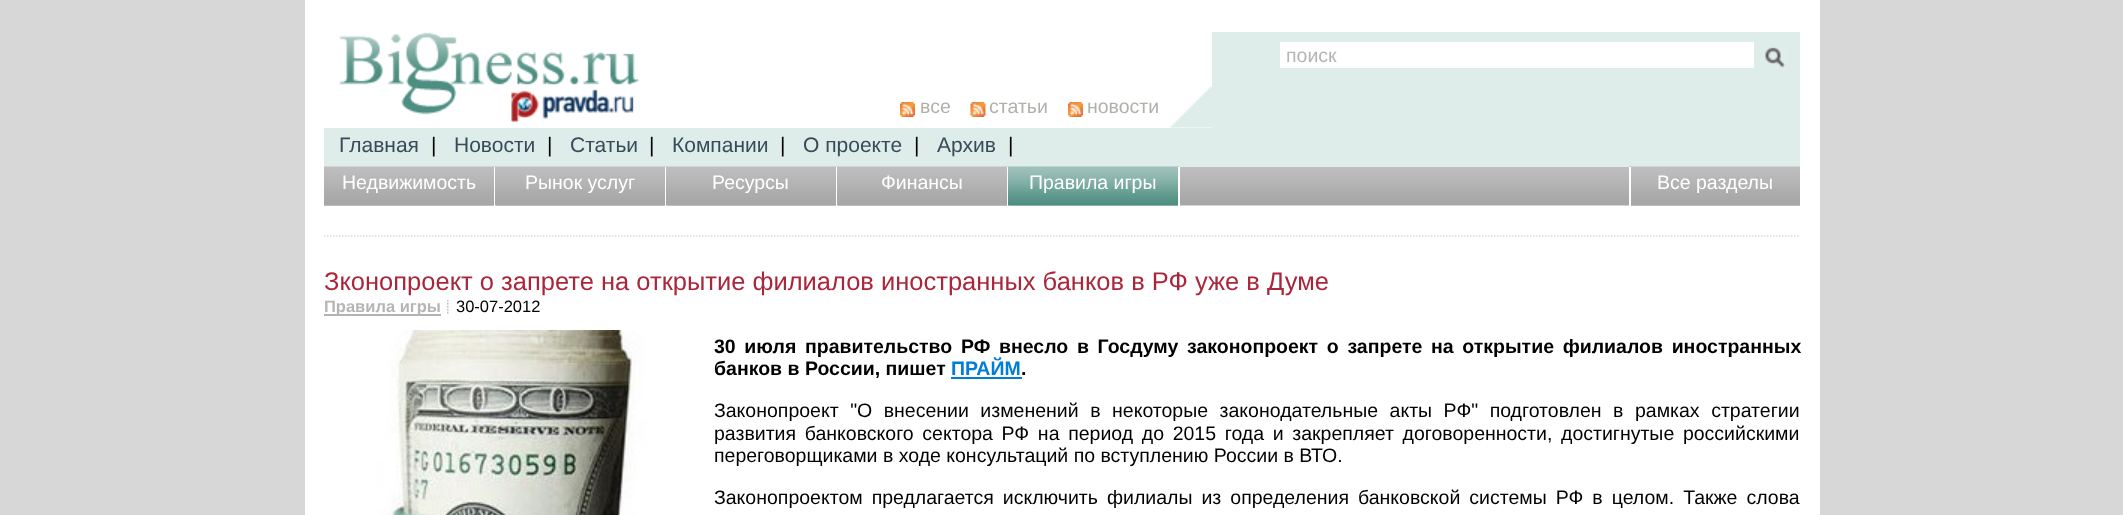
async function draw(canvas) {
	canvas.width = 2123;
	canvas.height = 515;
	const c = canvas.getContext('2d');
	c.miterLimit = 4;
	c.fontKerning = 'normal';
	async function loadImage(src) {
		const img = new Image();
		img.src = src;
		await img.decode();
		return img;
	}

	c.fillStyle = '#d7d7d7';
	c.fillRect(0, 0, 2123, 515);
	c.fillStyle = '#fff';
	c.fillRect(305, 0, 1515, 515);
	c.drawImage(await loadImage('img1.png'), 339, 32, 301, 90);
	c.fillStyle = '#deedea';
	c.fillRect(1212, 32, 588, 135);
	c.fillStyle = '#fff';
	c.fillRect(1280, 42, 474, 26);
	c.font = '19.5px Liberation Sans';
	c.fillStyle = '#b6b5b5';
	c.fillText('поиск', 1286, 62);
	c.drawImage(await loadImage('img2.png'), 1765, 47, 21, 21);
	c.drawImage(await loadImage('img3.png'), 1170, 87, 42, 41);
	c.drawImage(await loadImage('img4.png'), 900, 102, 15, 15);
	c.fillStyle = '#b1b0aa';
	c.fillText('все', 920, 113);
	c.drawImage(await loadImage('img5.png'), 970, 102, 16, 15);
	c.fillText('статьи', 989, 113);
	c.drawImage(await loadImage('img6.png'), 1068, 102, 15, 15);
	c.fillText('новости', 1087, 113);
	c.fillStyle = '#deedea';
	c.fillRect(324, 128, 888, 39);
	c.font = '21px Liberation Sans';
	c.fillStyle = '#384b59';
	c.fillText('Главная', 339, 152);
	c.fillStyle = '#000';
	c.fillText('|', 431, 152);
	c.fillStyle = '#384b59';
	c.fillText('Новости', 454, 152);
	c.fillStyle = '#000';
	c.fillText('|', 547, 152);
	c.fillStyle = '#384b59';
	c.fillText('Статьи', 570, 152);
	c.fillStyle = '#000';
	c.fillText('|', 649, 152);
	c.fillStyle = '#384b59';
	c.fillText('Компании', 672, 152);
	c.fillStyle = '#000';
	c.fillText('|', 780, 152);
	c.fillStyle = '#384b59';
	c.fillText('О проекте', 803, 152);
	c.fillStyle = '#000';
	c.fillText('|', 914, 152);
	c.fillStyle = '#384b59';
	c.fillText('Архив', 937, 152);
	c.fillStyle = '#000';
	c.fillText('|', 1008, 152);
	c.drawImage(await loadImage('img7.png'), 324, 167, 1476, 39);
	c.drawImage(await loadImage('img8.png'), 324, 166, 171, 40);
	c.fillStyle = '#fff';
	c.fillRect(494, 167, 2, 39);
	c.font = '19.5px Liberation Sans';
	c.fillText('Недвижимость', 342, 189);
	c.drawImage(await loadImage('img9.png'), 495, 166, 171, 40);
	c.fillRect(665, 167, 2, 39);
	c.fillText('Рынок услуг', 525, 189);
	c.drawImage(await loadImage('img9.png'), 666, 166, 171, 40);
	c.fillRect(836, 167, 2, 39);
	c.fillText('Ресурсы', 712, 189);
	c.drawImage(await loadImage('img9.png'), 837, 166, 171, 40);
	c.fillRect(1007, 167, 2, 39);
	c.fillText('Финансы', 881, 189);
	c.drawImage(await loadImage('img10.png'), 1008, 166, 171, 40);
	c.fillRect(1178, 167, 2, 39);
	c.fillText('Правила игры', 1029, 189);
	c.drawImage(await loadImage('img8.png'), 1629, 166, 171, 40);
	c.fillRect(1629, 167, 2, 39);
	c.fillText('Все разделы', 1657, 189);
	c.beginPath();
	c.moveTo(324, 236);
	c.lineTo(1800, 236);
	c.strokeStyle = '#dadada';
	c.lineWidth = 1.5;
	c.setLineDash([1.5, 1.5]);
	c.stroke();
	c.font = '25.5px Liberation Sans';
	c.fillStyle = '#aa263b';
	c.fillText('Зконопроект о запрете на открытие филиалов иностранных банков в РФ уже в Думе', 324, 290);
	c.fillStyle = '#b2b2b2';
	c.fillRect(324, 314, 117, 2);
	c.font = 'bold 16.5px Liberation Sans';
	c.fillStyle = '#b6b5b5';
	c.fillText('Правила игры', 324, 312);
	c.drawImage(await loadImage('img11.png'), 447, 299, 2, 15);
	c.font = '16.5px Liberation Sans';
	c.fillStyle = '#000';
	c.fillText('30-07-2012', 456, 312);
	c.drawImage(await loadImage('img12.png'), 324, 330, 375, 185);
	c.wordSpacing = '3.25px';
	c.font = 'bold 19.5px Liberation Sans';
	c.fillText('30 июля правительство РФ внесло в Госдуму законопроект о запрете на открытие филиалов иностранных', 714, 353);
	c.wordSpacing = '0px';
	c.fillText('банков в России, пишет', 714, 375);
	c.fillStyle = '#007dd6';
	c.fillText('ПРАЙМ', 951, 375);
	c.fillStyle = '#000';
	c.fillText('.', 1021, 375);
	c.fillStyle = '#007dd6';
	c.fillRect(951, 377, 71, 2);
	c.wordSpacing = '6.1px';
	c.font = '19.5px Liberation Sans';
	c.fillStyle = '#000';
	c.fillText('Законопроект "О внесении изменений в некоторые законодательные акты РФ" подготовлен в рамках стратегии', 714, 417);
	c.wordSpacing = '3.25px';
	c.fillText('развития банковского сектора РФ на период до 2015 года и закрепляет договоренности, достигнутые российскими', 714, 440);
	c.wordSpacing = '0px';
	c.fillText('переговорщиками в ходе консультаций по вступлению России в ВТО.', 714, 462);
	c.wordSpacing = '3.6px';
	c.fillText('Законопроектом предлагается исключить филиалы из определения банковской системы РФ в целом. Также слова', 714, 504);
}

draw(document.querySelector('canvas'));
